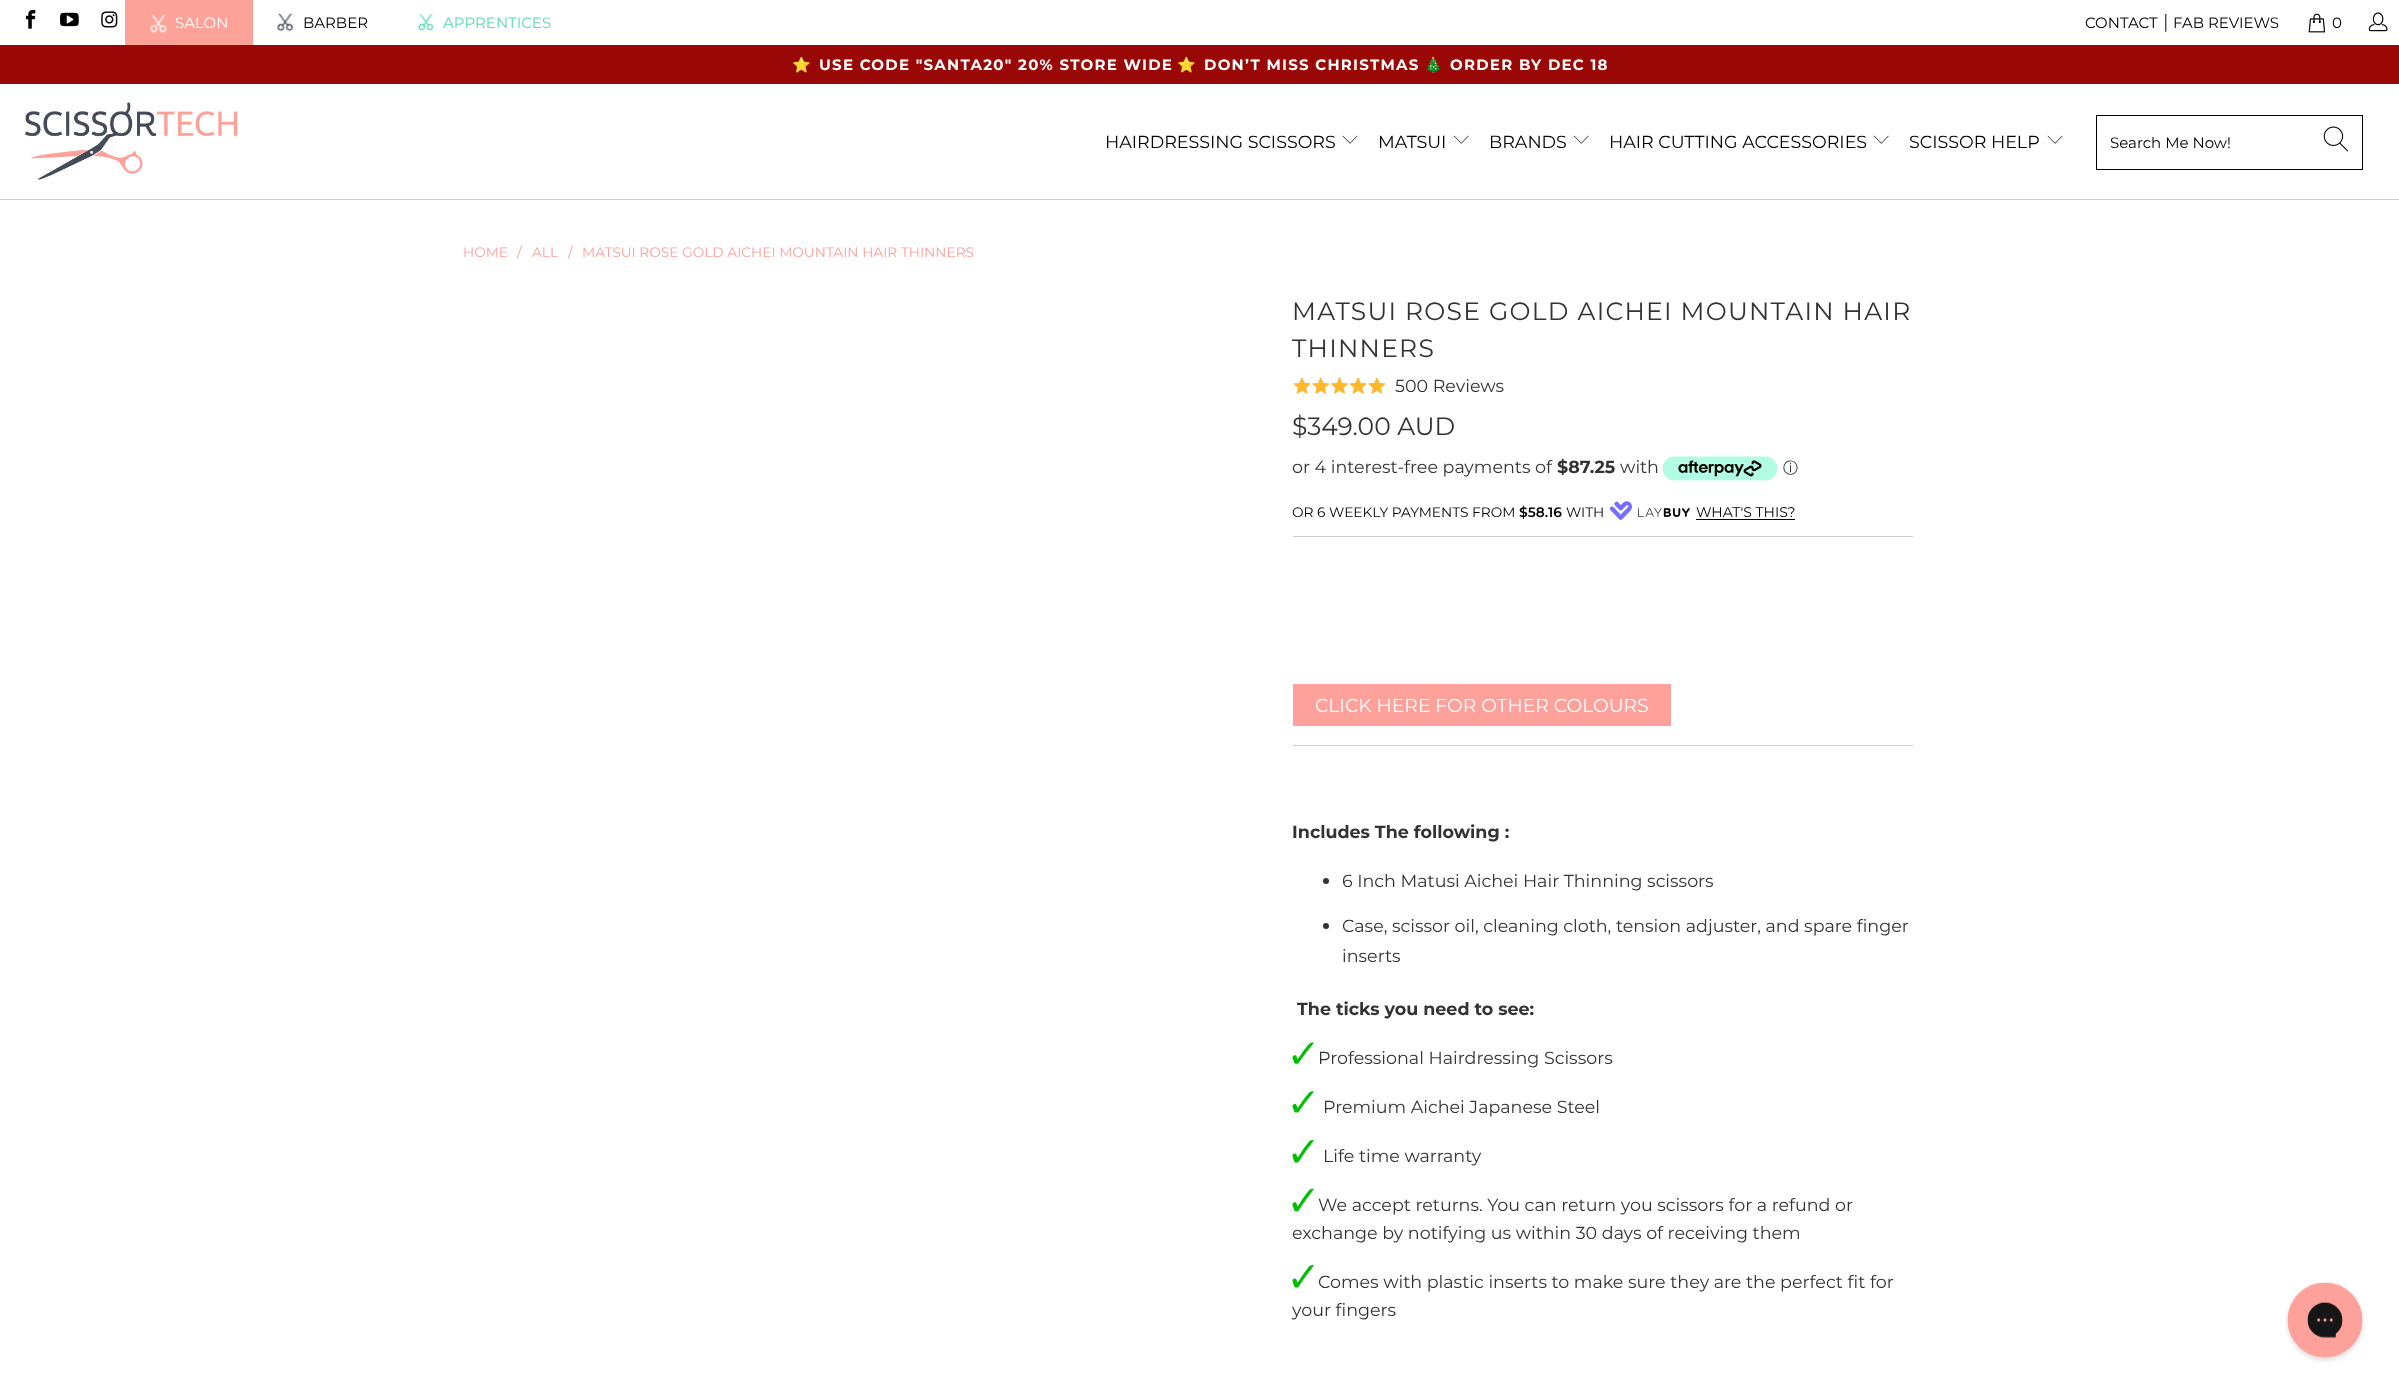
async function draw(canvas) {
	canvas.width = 2399;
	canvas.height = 1391;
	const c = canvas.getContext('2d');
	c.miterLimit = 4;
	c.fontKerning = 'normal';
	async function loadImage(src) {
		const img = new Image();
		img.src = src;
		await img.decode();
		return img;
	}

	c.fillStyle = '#fff';
	c.fillRect(0, 0, 2399, 1391);
	c.drawImage(await loadImage('img1.png'), 25, 9, 11, 20);
	c.drawImage(await loadImage('img2.png'), 60, 12, 19, 15);
	c.drawImage(await loadImage('img3.png'), 101, 11, 17, 17);
	c.fillStyle = '#fca299';
	c.fillRect(125, 0, 128, 45);
	c.drawImage(await loadImage('img4.png'), 150, 14, 17, 19);
	c.font = '15px Montserrat';
	c.fillStyle = '#fff';
	c.fillText('SALON', 175, 28);
	c.drawImage(await loadImage('img5.png'), 277, 13, 17, 19);
	c.fillStyle = '#000';
	c.fillText('BARBER', 303, 28);
	c.drawImage(await loadImage('img6.png'), 417, 13, 17, 19);
	c.fillStyle = '#5bd9b4';
	c.fillText('APPRENTICES', 443, 28);
	c.fillStyle = '#000';
	c.fillText('CONTACT', 2085, 28);
	c.font = '18.75px Montserrat';
	c.fillStyle = '#333';
	c.fillText('|', 2163, 28);
	c.font = '15px Montserrat';
	c.fillStyle = '#000';
	c.fillText('FAB REVIEWS', 2173, 28);
	c.drawImage(await loadImage('img7.png'), 2308, 13, 18, 20);
	c.fillText('0', 2332, 28);
	c.drawImage(await loadImage('img8.png'), 2368, 12, 20, 20);
	c.fillStyle = '#9a0707';
	c.fillRect(0, 45, 2399, 39);
	c.letterSpacing = '1.25px';
	c.font = 'bold 15px Noto Color Emoji';
	c.fillStyle = '#fff';
	c.fillText('⭐️', 792, 70);
	c.font = 'bold 15px Montserrat';
	c.fillText('USE CODE "SANTA20" 20% STORE WIDE', 819, 70);
	c.font = 'bold 15px Noto Color Emoji';
	c.fillText('⭐️', 1177, 70);
	c.font = 'bold 15px Montserrat';
	c.fillText('DON’T MISS CHRISTMAS', 1204, 70);
	c.font = 'bold 15px Noto Color Emoji';
	c.fillText('🎄', 1424, 70);
	c.font = 'bold 15px Montserrat';
	c.fillText('ORDER BY DEC 18', 1450, 70);
	c.fillStyle = '#ccc';
	c.fillRect(0, 199, 2399, 1);
	c.drawImage(await loadImage('img9.png'), 25, 102, 213, 78);
	c.letterSpacing = '0px';
	c.font = '17.5px Montserrat';
	c.fillStyle = '#000';
	c.fillText('HAIRDRESSING SCISSORS', 1105, 148);
	c.drawImage(await loadImage('img10.png'), 1342, 135, 16, 9);
	c.fillText('MATSUI', 1378, 148);
	c.drawImage(await loadImage('img11.png'), 1453, 135, 16, 9);
	c.fillText('BRANDS', 1489, 148);
	c.drawImage(await loadImage('img11.png'), 1573, 135, 16, 9);
	c.fillText('HAIR CUTTING ACCESSORIES', 1609, 148);
	c.drawImage(await loadImage('img11.png'), 1873, 135, 16, 9);
	c.fillText('SCISSOR HELP', 1909, 148);
	c.drawImage(await loadImage('img10.png'), 2047, 135, 16, 9);
	c.strokeStyle = '#000';
	c.strokeRect(2096.5, 115.5, 266, 54);
	c.font = '15px Montserrat';
	c.fillText('Search Me Now!', 2110, 148);
	c.drawImage(await loadImage('img12.png'), 2323, 126, 26, 26);
	c.font = '13.75px Montserrat';
	c.fillStyle = '#fea19a';
	for (const [text, x, y] of [
		['HOME', 463, 257],
		['/', 517, 257],
		['ALL', 532, 257],
		['/', 568, 257],
		['MATSUI ROSE GOLD AICHEI MOUNTAIN HAIR THINNERS', 582, 257],
	]) {
		c.fillText(text, x, y);
	}
	c.letterSpacing = '1.25px';
	c.font = '25px Montserrat';
	c.fillStyle = '#333';
	c.fillText('MATSUI ROSE GOLD AICHEI MOUNTAIN HAIR', 1292, 320);
	c.fillText('THINNERS', 1292, 357);
	c.drawImage(await loadImage('img13.png'), 1293, 377, 93, 17);
	c.drawImage(await loadImage('img14.png'), 1293, 377, 92, 17);
	c.letterSpacing = '0px';
	c.font = '17.5px Montserrat';
	c.fillText('500 Reviews', 1395, 392);
	c.font = '25px Montserrat';
	c.fillText('$349.00 AUD', 1292, 435);
	c.font = '17.5px Montserrat';
	c.fillText('or 4 interest-free payments of', 1292, 473);
	c.font = 'bold 17.5px Montserrat';
	c.fillText('$87.25', 1557, 473);
	c.font = '17.5px Montserrat';
	c.fillText('with', 1620, 473);
	c.drawImage(await loadImage('img15.png'), 1663, 456, 115, 25);
	c.font = '500 15px WenQuanYi Zen Hei';
	c.fillText('ⓘ', 1783, 473);
	c.fillStyle = '#ccc';
	c.fillRect(1293, 536, 620, 1);
	c.font = '13.75px Montserrat';
	c.fillStyle = '#000';
	c.fillText('OR 6 WEEKLY PAYMENTS FROM', 1292, 517);
	c.font = '600 13.75px Montserrat';
	c.fillText('$58.16', 1519, 517);
	c.font = '13.75px Montserrat';
	c.fillText('WITH', 1566, 517);
	c.drawImage(await loadImage('img16.png'), 1609, 501, 81, 19);
	c.font = '14px Montserrat';
	c.fillText('WHAT\'S THIS?', 1696, 517);
	c.fillRect(1696, 519, 99, 1);
	c.fillStyle = '#fea19a';
	c.fillRect(1293, 684, 378, 42);
	c.font = '18.75px Montserrat';
	c.fillStyle = '#fff';
	c.fillText('CLICK HERE FOR OTHER COLOURS', 1315, 712);
	c.fillStyle = '#ccc';
	c.fillRect(1293, 745, 620, 1);
	c.font = 'bold 17.5px Montserrat';
	c.fillStyle = '#333';
	c.fillText('Includes The following :', 1292, 838);
	c.beginPath();
	c.arc(1326, 881, 3, 0, 2 * Math.PI);
	c.fill();
	c.font = '17.5px Montserrat';
	c.fillText('6 Inch Matusi Aichei Hair Thinning scissors', 1342, 887);
	c.beginPath();
	c.arc(1326, 926, 3, 0, 2 * Math.PI);
	c.fill();
	c.fillText('Case, scissor oil, cleaning cloth, tension adjuster, and spare finger', 1342, 932);
	c.fillText('inserts', 1342, 962);
	c.font = 'bold 17.5px Montserrat';
	c.fillText('The ticks you need to see:', 1297, 1015);
	c.drawImage(await loadImage('img17.png'), 1292, 1042, 22, 22);
	c.font = '17.5px Montserrat';
	c.fillText('Professional Hairdressing Scissors', 1318, 1064);
	c.drawImage(await loadImage('img18.png'), 1292, 1091, 22, 22);
	c.fillText('Premium Aichei Japanese Steel', 1323, 1113);
	c.drawImage(await loadImage('img19.png'), 1292, 1140, 22, 23);
	c.fillText('Life time warranty', 1323, 1162);
	c.drawImage(await loadImage('img20.png'), 1292, 1188, 22, 24);
	c.fillText('We accept returns. You can return you scissors for a refund or', 1318, 1211);
	c.fillText('exchange by notifying us within 30 days of receiving them', 1292, 1239);
	c.drawImage(await loadImage('img19.png'), 1292, 1265, 22, 23);
	c.fillText('Comes with plastic inserts to make sure they are the perfect fit for', 1318, 1288);
	c.fillText('your fingers', 1292, 1316);
	c.drawImage(await loadImage('img21.png'), 2285, 1282, 80, 81);
}

draw(document.querySelector('canvas'));
